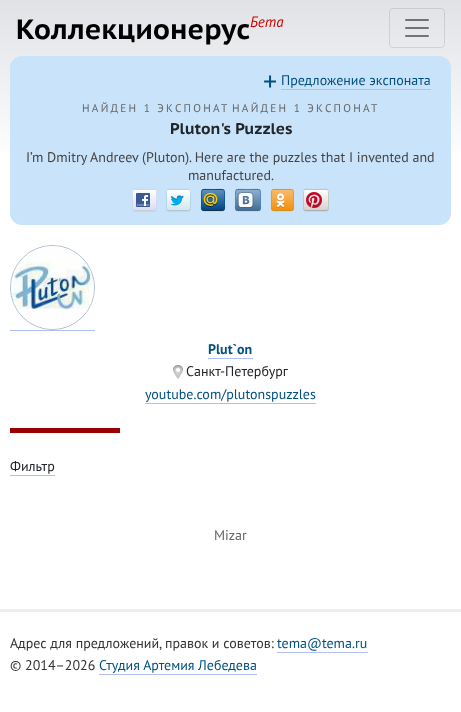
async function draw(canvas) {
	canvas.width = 461;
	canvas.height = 712;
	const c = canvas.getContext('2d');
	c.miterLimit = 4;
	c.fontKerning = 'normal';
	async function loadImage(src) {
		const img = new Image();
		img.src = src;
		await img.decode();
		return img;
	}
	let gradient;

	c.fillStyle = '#fff';
	c.fillRect(0, 0, 461, 712);
	gradient = c.createLinearGradient(231, 0, 231, 165);
	gradient.addColorStop(0, '#e0e2e6');
	gradient.addColorStop(1, '#fff');
	c.fillStyle = gradient;
	c.fillRect(0, 0, 461, 152);
	c.font = 'bold 28px PT Sans Caption';
	c.fillStyle = '#000';
	c.fillText('Коллекционерус', 16, 39);
	c.font = 'italic 15px PT Sans';
	c.fillStyle = '#c00';
	c.fillText('Бета', 250, 27);
	c.beginPath();
	c.roundRect(389.5, 8.5, 55, 39, 3.5);
	c.strokeStyle = '#0000001a';
	c.stroke();
	c.drawImage(await loadImage('img1.png'), 405, 19, 24, 18);
	c.fillStyle = '#c9e3fa';
	c.beginPath();
	c.roundRect(10, 56, 441, 169, 12);
	c.fill();
	c.fillStyle = '#b0c0f0';
	c.fillRect(281, 89, 150, 1);
	c.font = '28px PT Sans';
	c.fillStyle = '#005080';
	c.fillText('+', 263, 91);
	c.font = '14px PT Sans';
	c.fillText('Предложение экспоната', 281, 85);
	c.letterSpacing = '2.25px';
	c.font = '11.25px PT Sans';
	c.fillStyle = '#666';
	c.fillText('НАЙДЕН 1 ЭКСПОНАТ', 82, 112);
	c.fillText('НАЙДЕН 1 ЭКСПОНАТ', 232, 112);
	c.letterSpacing = '0px';
	c.font = 'bold 15.5px PT Sans Caption';
	c.fillStyle = '#212529';
	c.fillText('Pluton\'s Puzzles', 170, 134);
	c.font = '14px PT Sans';
	c.fillStyle = '#444';
	c.fillText('I’m Dmitry Andreev (Pluton). Here are the puzzles that I invented and', 26, 162);
	c.fillText('manufactured.', 188, 180);
	c.fillStyle = '#0000000d';
	c.filter = 'blur(0.5px)';
	c.beginPath();
	c.roundRect(132, 190, 25, 22, 3);
	c.fill();
	c.filter = 'none';
	c.save();
	c.beginPath();
	c.roundRect(132, 189, 25, 22, 3);
	c.clip();
	gradient = c.createLinearGradient(145, 170, 145, 190);
	gradient.addColorStop(0, '#fff');
	gradient.addColorStop(1, '#d8def4');
	c.fillStyle = gradient;
	c.fillRect(132, 189, 25, 1);
	gradient = c.createLinearGradient(145, 190, 145, 210);
	gradient.addColorStop(0, '#fff');
	gradient.addColorStop(1, '#d8def4');
	c.fillStyle = gradient;
	c.fillRect(132, 190, 25, 20);
	gradient = c.createLinearGradient(145, 210, 145, 230);
	gradient.addColorStop(0, '#fff');
	gradient.addColorStop(1, '#d8def4');
	c.fillStyle = gradient;
	c.fillRect(132, 210, 25, 1);
	c.restore();
	c.beginPath();
	c.moveTo(156, 210);
	c.bezierCurveTo(155.5, 210, 154.5, 210.5, 154, 210.5);
	c.lineTo(135, 210.5);
	c.bezierCurveTo(134.5, 210.5, 133.5, 210, 133, 210);
	c.strokeStyle = '#bdc2cbcc';
	c.stroke();
	c.beginPath();
	c.moveTo(133, 210);
	c.bezierCurveTo(132, 208.5, 132.5, 206.5, 132.5, 205.5);
	c.lineTo(132.5, 200);
	c.bezierCurveTo(132.5, 187, 131, 189.5, 144.5, 189.5);
	c.bezierCurveTo(158, 189.5, 156.5, 187, 156.5, 200);
	c.lineTo(156.5, 205.5);
	c.bezierCurveTo(156.5, 206.5, 157, 208.5, 156, 210);
	c.strokeStyle = '#cad4e7cc';
	c.stroke();
	c.drawImage(await loadImage('img2.png'), 136, 193, 14, 14);
	c.filter = 'blur(0.5px)';
	c.beginPath();
	c.roundRect(166, 190, 25, 22, 3);
	c.fill();
	c.filter = 'none';
	c.save();
	c.beginPath();
	c.roundRect(166, 189, 25, 22, 3);
	c.clip();
	gradient = c.createLinearGradient(179, 170, 179, 190);
	gradient.addColorStop(0, '#fff');
	gradient.addColorStop(1, '#d5e6ef');
	c.fillStyle = gradient;
	c.fillRect(166, 189, 25, 1);
	gradient = c.createLinearGradient(179, 190, 179, 210);
	gradient.addColorStop(0, '#fff');
	gradient.addColorStop(1, '#d5e6ef');
	c.fillStyle = gradient;
	c.fillRect(166, 190, 25, 20);
	gradient = c.createLinearGradient(179, 210, 179, 230);
	gradient.addColorStop(0, '#fff');
	gradient.addColorStop(1, '#d5e6ef');
	c.fillStyle = gradient;
	c.fillRect(166, 210, 25, 1);
	c.restore();
	c.beginPath();
	c.moveTo(190, 210);
	c.bezierCurveTo(189.5, 210, 188.5, 210.5, 188, 210.5);
	c.lineTo(169, 210.5);
	c.bezierCurveTo(168.5, 210.5, 167.5, 210, 167, 210);
	c.strokeStyle = '#9ebacccc';
	c.stroke();
	c.beginPath();
	c.moveTo(167, 210);
	c.bezierCurveTo(166, 208.5, 166.5, 206.5, 166.5, 205.5);
	c.lineTo(166.5, 200);
	c.bezierCurveTo(166.5, 187, 165, 189.5, 178.5, 189.5);
	c.bezierCurveTo(192, 189.5, 190.5, 187, 190.5, 200);
	c.lineTo(190.5, 205.5);
	c.bezierCurveTo(190.5, 206.5, 191, 208.5, 190, 210);
	c.strokeStyle = '#a4cce5cc';
	c.stroke();
	c.drawImage(await loadImage('img3.png'), 170, 195, 14, 11);
	c.filter = 'blur(0.5px)';
	c.beginPath();
	c.roundRect(201, 190, 24, 22, 3);
	c.fill();
	c.filter = 'none';
	c.save();
	c.beginPath();
	c.roundRect(201, 189, 24, 22, 3);
	c.clip();
	gradient = c.createLinearGradient(213, 170, 213, 190);
	gradient.addColorStop(0, '#5d90ba');
	gradient.addColorStop(1, '#004584');
	c.fillStyle = gradient;
	c.fillRect(201, 189, 24, 1);
	gradient = c.createLinearGradient(213, 190, 213, 210);
	gradient.addColorStop(0, '#5d90ba');
	gradient.addColorStop(1, '#004584');
	c.fillStyle = gradient;
	c.fillRect(201, 190, 24, 20);
	gradient = c.createLinearGradient(213, 210, 213, 230);
	gradient.addColorStop(0, '#5d90ba');
	gradient.addColorStop(1, '#004584');
	c.fillStyle = gradient;
	c.fillRect(201, 210, 24, 1);
	c.restore();
	c.beginPath();
	c.moveTo(224, 210);
	c.bezierCurveTo(223.5, 210, 222.5, 210.5, 222, 210.5);
	c.lineTo(204, 210.5);
	c.bezierCurveTo(203.5, 210.5, 202.5, 210, 202, 210);
	c.strokeStyle = '#031b30cc';
	c.stroke();
	c.beginPath();
	c.moveTo(202, 210);
	c.bezierCurveTo(201, 208.5, 201.5, 206.5, 201.5, 205.5);
	c.lineTo(201.5, 200);
	c.bezierCurveTo(201.5, 187.5, 200, 189.5, 213, 189.5);
	c.bezierCurveTo(226, 189.5, 224.5, 187.5, 224.5, 200);
	c.lineTo(224.5, 205.5);
	c.bezierCurveTo(224.5, 206.5, 225, 208.5, 224, 210);
	c.strokeStyle = '#0b5499cc';
	c.stroke();
	c.drawImage(await loadImage('img4.png'), 203, 192, 15, 15);
	c.filter = 'blur(0.5px)';
	c.beginPath();
	c.roundRect(235, 190, 26, 22, 3);
	c.fill();
	c.filter = 'none';
	c.save();
	c.beginPath();
	c.roundRect(235, 189, 26, 22, 3);
	c.clip();
	gradient = c.createLinearGradient(248, 170, 248, 190);
	gradient.addColorStop(0, '#8faecf');
	gradient.addColorStop(1, '#436f96');
	c.fillStyle = gradient;
	c.fillRect(235, 189, 26, 1);
	gradient = c.createLinearGradient(248, 190, 248, 210);
	gradient.addColorStop(0, '#8faecf');
	gradient.addColorStop(1, '#436f96');
	c.fillStyle = gradient;
	c.fillRect(235, 190, 26, 20);
	gradient = c.createLinearGradient(248, 210, 248, 230);
	gradient.addColorStop(0, '#8faecf');
	gradient.addColorStop(1, '#436f96');
	c.fillStyle = gradient;
	c.fillRect(235, 210, 26, 1);
	c.restore();
	c.beginPath();
	c.moveTo(260, 210);
	c.bezierCurveTo(259.5, 210, 258.5, 210.5, 258, 210.5);
	c.lineTo(238, 210.5);
	c.bezierCurveTo(237.5, 210.5, 236.5, 210, 236, 210);
	c.strokeStyle = '#34587fcc';
	c.stroke();
	c.beginPath();
	c.moveTo(236, 210);
	c.bezierCurveTo(235, 208.5, 235.5, 206.5, 235.5, 205.5);
	c.lineTo(235.5, 200);
	c.bezierCurveTo(235.5, 187, 234, 189.5, 248, 189.5);
	c.bezierCurveTo(262, 189.5, 260.5, 187, 260.5, 200);
	c.lineTo(260.5, 205.5);
	c.bezierCurveTo(260.5, 206.5, 261, 208.5, 260, 210);
	c.strokeStyle = '#4e83c1cc';
	c.stroke();
	c.drawImage(await loadImage('img5.png'), 237, 192, 17, 16);
	c.filter = 'blur(0.5px)';
	c.beginPath();
	c.roundRect(271, 190, 23, 22, 3);
	c.fill();
	c.filter = 'none';
	c.save();
	c.beginPath();
	c.roundRect(271, 189, 23, 22, 3);
	c.clip();
	gradient = c.createLinearGradient(283, 170, 283, 190);
	gradient.addColorStop(0, '#f6bb6d');
	gradient.addColorStop(1, '#f6900b');
	c.fillStyle = gradient;
	c.fillRect(271, 189, 23, 1);
	gradient = c.createLinearGradient(283, 190, 283, 210);
	gradient.addColorStop(0, '#f6bb6d');
	gradient.addColorStop(1, '#f6900b');
	c.fillStyle = gradient;
	c.fillRect(271, 190, 23, 20);
	gradient = c.createLinearGradient(283, 210, 283, 230);
	gradient.addColorStop(0, '#f6bb6d');
	gradient.addColorStop(1, '#f6900b');
	c.fillStyle = gradient;
	c.fillRect(271, 210, 23, 1);
	c.restore();
	c.beginPath();
	c.moveTo(293, 210);
	c.bezierCurveTo(292.5, 210, 291.5, 210.5, 291, 210.5);
	c.lineTo(274, 210.5);
	c.bezierCurveTo(273.5, 210.5, 272.5, 210, 272, 210);
	c.strokeStyle = '#c58907cc';
	c.stroke();
	c.beginPath();
	c.moveTo(272, 210);
	c.bezierCurveTo(271, 208.5, 271.5, 206.5, 271.5, 205.5);
	c.lineTo(271.5, 200);
	c.bezierCurveTo(271.5, 187.5, 270, 189.5, 282.5, 189.5);
	c.bezierCurveTo(295, 189.5, 293.5, 187.5, 293.5, 200);
	c.lineTo(293.5, 205.5);
	c.bezierCurveTo(293.5, 206.5, 294, 208.5, 293, 210);
	c.strokeStyle = '#d99a26cc';
	c.stroke();
	c.drawImage(await loadImage('img6.png'), 276, 193, 9, 15);
	c.filter = 'blur(0.5px)';
	c.beginPath();
	c.roundRect(303, 190, 26, 22, 3);
	c.fill();
	c.filter = 'none';
	c.save();
	c.beginPath();
	c.roundRect(303, 189, 26, 22, 3);
	c.clip();
	gradient = c.createLinearGradient(316, 170, 316, 190);
	gradient.addColorStop(0, '#fefefe');
	gradient.addColorStop(1, '#d3d3d3');
	c.fillStyle = gradient;
	c.fillRect(303, 189, 26, 1);
	gradient = c.createLinearGradient(316, 190, 316, 210);
	gradient.addColorStop(0, '#fefefe');
	gradient.addColorStop(1, '#d3d3d3');
	c.fillStyle = gradient;
	c.fillRect(303, 190, 26, 20);
	gradient = c.createLinearGradient(316, 210, 316, 230);
	gradient.addColorStop(0, '#fefefe');
	gradient.addColorStop(1, '#d3d3d3');
	c.fillStyle = gradient;
	c.fillRect(303, 210, 26, 1);
	c.restore();
	c.beginPath();
	c.moveTo(328, 210);
	c.bezierCurveTo(327.5, 210, 326.5, 210.5, 326, 210.5);
	c.lineTo(306, 210.5);
	c.bezierCurveTo(305.5, 210.5, 304.5, 210, 304, 210);
	c.strokeStyle = '#999999cc';
	c.stroke();
	c.beginPath();
	c.moveTo(304, 210);
	c.bezierCurveTo(303, 208.5, 303.5, 206.5, 303.5, 205.5);
	c.lineTo(303.5, 200);
	c.bezierCurveTo(303.5, 187, 302, 189.5, 316, 189.5);
	c.bezierCurveTo(330, 189.5, 328.5, 187, 328.5, 200);
	c.lineTo(328.5, 205.5);
	c.bezierCurveTo(328.5, 206.5, 329, 208.5, 328, 210);
	c.strokeStyle = '#bababacc';
	c.stroke();
	c.drawImage(await loadImage('img7.png'), 306, 192, 16, 16);
	c.fillStyle = '#b0c0f0';
	c.fillRect(10, 330, 85, 1);
	c.beginPath();
	c.arc(52.5, 287.5, 42, 0, 2 * Math.PI);
	c.strokeStyle = '#abc';
	c.stroke();
	c.drawImage(await loadImage('img8.png'), 11, 246, 83, 83);
	c.font = 'bold 14px PT Sans';
	c.fillStyle = '#005080';
	c.fillText('Plut`on', 208, 354);
	c.fillStyle = '#b0c0f0';
	c.fillRect(208, 358, 45, 1);
	c.drawImage(await loadImage('img9.png'), 173, 365, 10, 14);
	c.font = '14px PT Sans';
	c.fillStyle = '#212529';
	c.fillText('Санкт-Петербург', 186, 376);
	c.fillStyle = '#005080';
	c.fillText('youtube.com/plutonspuzzles', 145, 399);
	c.fillStyle = '#b0c0f0';
	c.fillRect(145, 403, 171, 1);
	c.fillStyle = '#900';
	c.fillRect(10, 428, 110, 5);
	c.fillStyle = '#212529';
	c.fillText('Фильтр', 10, 471);
	c.fillStyle = '#b0c0f0';
	c.fillRect(10, 475, 45, 1);
	c.fillStyle = '#666';
	c.fillText('Mizar', 214, 540);
	c.fillStyle = '#eee';
	c.fillRect(0, 609, 461, 3);
	c.fillStyle = '#333';
	c.fillText('Адрес для предложений, правок и советов:', 10, 648);
	c.fillStyle = '#005080';
	c.fillText('tema@tema.ru', 277, 648);
	c.fillStyle = '#b0c0f0';
	c.fillRect(277, 652, 91, 1);
	c.fillStyle = '#333';
	c.fillText('© 2014–2026', 10, 670);
	c.fillStyle = '#005080';
	c.fillText('Студия Артемия Лебедева', 99, 670);
	c.fillStyle = '#b0c0f0';
	c.fillRect(99, 674, 158, 1);
}

draw(document.querySelector('canvas'));
